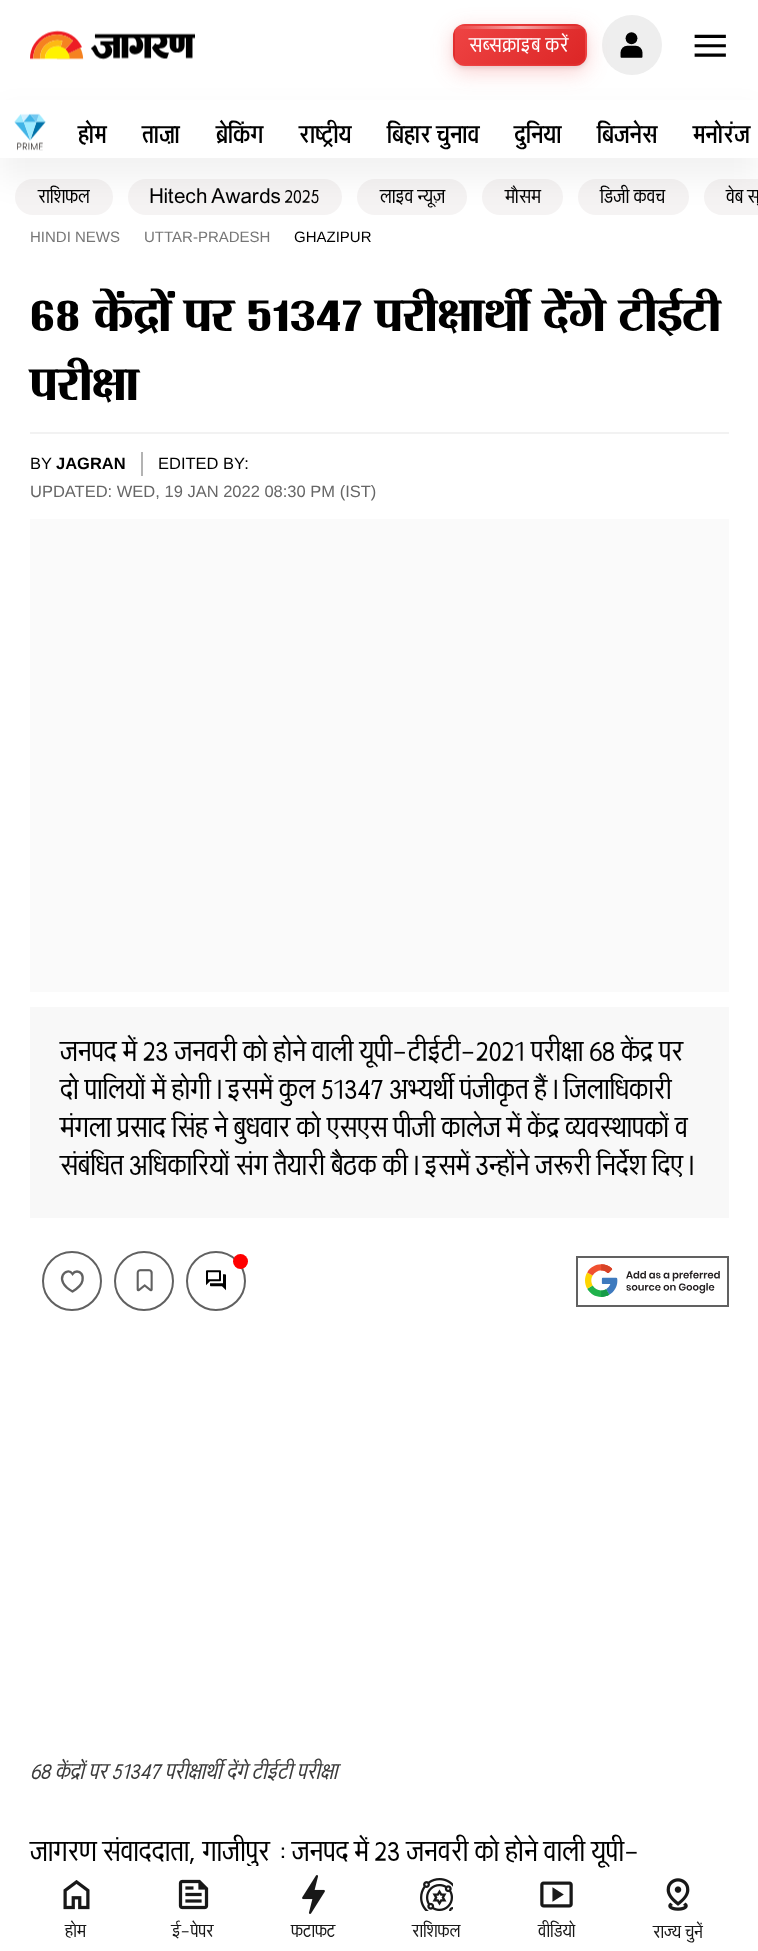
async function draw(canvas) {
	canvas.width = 758;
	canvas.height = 1951;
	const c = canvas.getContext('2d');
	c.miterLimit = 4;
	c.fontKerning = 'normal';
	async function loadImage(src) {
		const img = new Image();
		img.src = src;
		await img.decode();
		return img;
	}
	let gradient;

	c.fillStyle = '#fff';
	c.fillRect(0, 0, 758, 1951);
	c.drawImage(await loadImage('img1.png'), 30, 30, 165, 30);
	c.fillStyle = '#0000001a';
	c.filter = 'blur(2px)';
	c.beginPath();
	c.roundRect(453, 26, 134, 42, 12);
	c.fill();
	c.filter = 'none';
	c.fillStyle = '#f5f3f3';
	c.beginPath();
	c.roundRect(15, 179, 98, 36, 18);
	c.fill();
	c.beginPath();
	c.roundRect(128, 179, 214, 36, 18);
	c.fill();
	c.beginPath();
	c.roundRect(357, 179, 110, 36, 18);
	c.fill();
	c.beginPath();
	c.roundRect(482, 179, 81, 36, 18);
	c.fill();
	c.beginPath();
	c.roundRect(578, 179, 111, 36, 18);
	c.fill();
	c.beginPath();
	c.moveTo(722, 179);
	c.lineTo(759, 179);
	c.lineTo(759, 215);
	c.lineTo(722, 215);
	c.bezierCurveTo(712, 215, 704, 207, 704, 197);
	c.bezierCurveTo(704, 187, 712, 179, 722, 179);
	c.closePath();
	c.fill();
	c.fillStyle = '#0000000d';
	c.filter = 'blur(15px)';
	c.beginPath();
	c.rect(0, 113, 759, 67);
	c.fill();
	c.filter = 'none';
	c.fillStyle = '#eee';
	c.beginPath();
	c.arc(632, 45, 30, 0, 2 * Math.PI);
	c.fill();
	c.fillStyle = '#fff';
	c.fillRect(0, 100, 758, 58);
	c.fillStyle = '#ef444440';
	c.filter = 'blur(10.5px)';
	c.beginPath();
	c.roundRect(453, 30, 134, 42, 12);
	c.fill();
	c.filter = 'none';
	c.save();
	c.beginPath();
	c.roundRect(453, 24, 134, 42, 12);
	c.clip();
	gradient = c.createLinearGradient(477, -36, 562, 48);
	gradient.addColorStop(0, '#ef4444');
	gradient.addColorStop(1, '#dc2626');
	c.fillStyle = gradient;
	c.fillRect(455, 24, 130, 2);
	gradient = c.createLinearGradient(347, 2.6, 432, 87);
	gradient.addColorStop(0, '#ef4444');
	gradient.addColorStop(1, '#dc2626');
	c.fillStyle = gradient;
	c.fillRect(453, 26, 2, 39);
	gradient = c.createLinearGradient(477, 2.6, 562, 87);
	gradient.addColorStop(0, '#ef4444');
	gradient.addColorStop(1, '#dc2626');
	c.fillStyle = gradient;
	c.fillRect(455, 26, 130, 39);
	gradient = c.createLinearGradient(608, 2.6, 693, 87);
	gradient.addColorStop(0, '#ef4444');
	gradient.addColorStop(1, '#dc2626');
	c.fillStyle = gradient;
	c.fillRect(585, 26, 2, 39);
	gradient = c.createLinearGradient(477, 42, 562, 126);
	gradient.addColorStop(0, '#ef4444');
	gradient.addColorStop(1, '#dc2626');
	c.fillStyle = gradient;
	c.fillRect(455, 65, 130, 1);
	c.restore();
	c.beginPath();
	c.roundRect(454, 25, 132, 40, 11);
	c.strokeStyle = '#ef444433';
	c.lineWidth = 2;
	c.stroke();
	gradient = c.createLinearGradient(455, 27, 585, 27);
	gradient.addColorStop(0, '#ffffff00');
	gradient.addColorStop(0.5, '#ffffff8f');
	gradient.addColorStop(1, '#ffffff00');
	c.fillStyle = gradient;
	c.fillRect(455, 26, 130, 3);
	c.letterSpacing = '0.75px';
	c.wordSpacing = '-1px';
	c.font = '24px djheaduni';
	c.fillStyle = '#fff';
	c.fillText('सब्सक्राइब करें', 469, 52);
	c.drawImage(await loadImage('img2.png'), 620, 32, 23, 26);
	c.drawImage(await loadImage('img3.png'), 694, 34, 32, 23);
	c.drawImage(await loadImage('img4.png'), 14, 113, 32, 38);
	c.letterSpacing = '0px';
	c.wordSpacing = '0px';
	c.font = 'bold 29px djheaduni';
	c.fillStyle = '#000';
	for (const [text, x, y] of [
		['होम', 78, 143],
		['ताज़ा', 142, 143],
		['ब्रेकिंग', 216, 143],
		['राष्ट्रीय', 299, 143],
		['बिहार चुनाव', 387, 143],
		['दुनिया', 514, 143],
		['बिजनेस', 597, 143],
		['मनोरंज', 693, 143],
	]) {
		c.fillText(text, x, y);
	}
	c.font = '22.5px djheaduni';
	for (const [text, x, y] of [
		['राशिफल', 38, 203],
		['Hitech Awards 2025', 149, 203],
		['लाइव न्यूज़', 380, 203],
		['मौसम', 505, 203],
		['डिजी कवच', 600, 203],
		['वेब स्', 726, 203],
	]) {
		c.fillText(text, x, y);
	}
	c.font = '15px Liberation Sans';
	c.fillStyle = '#767676';
	c.fillText('HINDI NEWS', 30, 242);
	c.fillText('UTTAR-PRADESH', 144, 242);
	c.fillStyle = '#000';
	c.fillText('GHAZIPUR', 294, 242);
	c.font = '60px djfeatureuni';
	c.fillText('68 केंद्रों पर 51347 परीक्षार्थी देंगे टीईटी', 30, 331);
	c.fillText('परीक्षा', 30, 400);
	c.fillStyle = '#f2f2f2';
	c.fillRect(30, 432, 699, 2);
	c.fillStyle = '#b3b3b3';
	c.fillRect(141, 452, 2, 24);
	c.font = '16.5px Liberation Sans';
	c.fillStyle = '#000';
	c.fillText('BY', 30, 469);
	c.font = 'bold 16.5px Liberation Sans';
	c.fillText('JAGRAN', 56, 469);
	c.font = '16.5px Liberation Sans';
	c.fillText('EDITED BY:', 158, 469);
	c.fillStyle = '#666';
	c.fillText('UPDATED: WED, 19 JAN 2022 08:30 PM (IST)', 30, 497);
	c.fillStyle = '#fafafa';
	c.fillRect(30, 519, 699, 473);
	c.fillStyle = '#f8f8f8';
	c.fillRect(30, 1007, 699, 211);
	c.font = '33px djheaduni';
	c.fillStyle = '#000';
	for (const [text, x, y] of [
		['जनपद में 23 जनवरी को होने वाली यूपी-टीईटी-2021 परीक्षा 68 केंद्र पर', 60, 1061],
		['दो पालियों में होगी। इसमें कुल 51347 अभ्यर्थी पंजीकृत हैं। जिलाधिकारी', 60, 1099],
		['मंगला प्रसाद सिंह ने बुधवार को एसएस पीजी कालेज में केंद्र व्यवस्थापकों व', 60, 1137],
		['संबंधित अधिकारियों संग तैयारी बैठक की। इसमें उन्होंने जरूरी निर्देश दिए।', 60, 1175],
	]) {
		c.fillText(text, x, y);
	}
	c.beginPath();
	c.arc(72, 1281, 29, 0, 2 * Math.PI);
	c.strokeStyle = '#616161';
	c.stroke();
	c.beginPath();
	c.moveTo(82.5, 1280.5);
	c.bezierCurveTo(81.5, 1286, 72.5, 1291.5, 72.5, 1291.5);
	c.bezierCurveTo(52, 1280, 67, 1265.5, 72.5, 1274);
	c.bezierCurveTo(73.5, 1272.5, 75, 1271.5, 77, 1271.5);
	c.bezierCurveTo(80.5, 1271.5, 83.5, 1274.5, 82.5, 1280.5);
	c.closePath();
	c.lineWidth = 2.3;
	c.stroke();
	c.beginPath();
	c.arc(144, 1281, 29, 0, 2 * Math.PI);
	c.lineWidth = 2;
	c.stroke();
	c.drawImage(await loadImage('img5.png'), 136, 1269, 17, 23);
	c.beginPath();
	c.arc(216, 1281, 29, 0, 2 * Math.PI);
	c.stroke();
	c.fillStyle = '#f00';
	c.beginPath();
	c.arc(240.5, 1261.5, 7.5, 0, 2 * Math.PI);
	c.fill();
	c.drawImage(await loadImage('img6.png'), 206, 1270, 20, 21);
	c.strokeRect(577, 1257, 151, 49);
	c.drawImage(await loadImage('img7.png'), 585, 1264, 135, 33);
	c.font = 'italic 25.5px djheaduni';
	c.fillStyle = '#3b3b3b';
	c.fillText('68 केंद्रों पर 51347 परीक्षार्थी देंगे टीईटी परीक्षा', 30, 1779);
	c.font = '33px djheaduni';
	c.fillStyle = '#000';
	c.fillText('जागरण संवाददाता, गाजीपुर : जनपद में 23 जनवरी को होने वाली यूपी-', 30, 1861);
	c.fillStyle = '#fff';
	c.fillRect(236, 1866, 360, 3);
	c.drawImage(await loadImage('img8.png'), 63, 1880, 27, 30);
	c.font = '21px djheaduni';
	c.fillStyle = '#181818';
	c.fillText('होम', 65, 1937);
	c.drawImage(await loadImage('img9.png'), 178, 1879, 31, 31);
	c.fillText('ई-पेपर', 172, 1937);
	c.drawImage(await loadImage('img10.png'), 302, 1875, 23, 39);
	c.fillText('फटाफट', 291, 1937);
	c.drawImage(await loadImage('img11.png'), 420, 1878, 33, 33);
	c.fillText('राशिफल', 412, 1937);
	c.drawImage(await loadImage('img12.png'), 540, 1881, 33, 27);
	c.fillText('वीडियो', 538, 1937);
	c.drawImage(await loadImage('img13.png'), 666, 1878, 24, 33);
	c.fillText('राज्य चुनें', 653, 1938);
}

draw(document.querySelector('canvas'));
